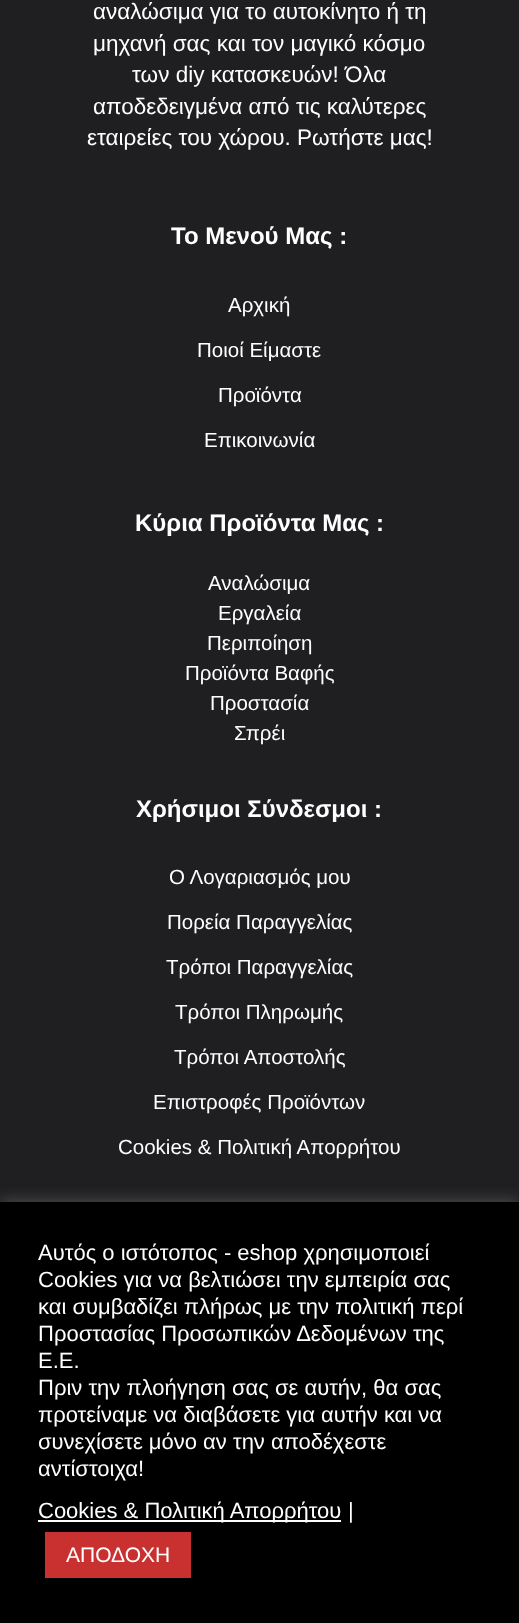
async function draw(canvas) {
	canvas.width = 519;
	canvas.height = 1623;
	const c = canvas.getContext('2d');
	c.miterLimit = 4;
	c.fontKerning = 'normal';

	c.fillStyle = '#1f1f21';
	c.fillRect(0, 0, 519, 1623);
	c.font = '22.5px Liberation Sans';
	c.fillStyle = '#fff';
	for (const [text, x, y] of [
		['αναλώσιμα για το αυτοκίνητο ή τη', 93, 19],
		['μηχανή σας και τον μαγικό κόσμο', 93, 51],
		['των diy κατασκευών! Όλα', 132, 82],
		['αποδεδειγμένα από τις καλύτερες', 93, 114],
		['εταιρείες του χώρου. Ρωτήστε μας!', 87, 145],
	]) {
		c.fillText(text, x, y);
	}
	c.font = 'bold 24px Liberation Sans';
	c.fillText('Το Μενού Μας :', 171, 244);
	c.font = '20.5px Liberation Sans';
	for (const [text, x, y] of [
		['Αρχική', 228, 312],
		['Ποιοί Είμαστε', 197, 357],
		['Προϊόντα', 218, 402],
		['Επικοινωνία', 204, 447],
	]) {
		c.fillText(text, x, y);
	}
	c.font = 'bold 24px Liberation Sans';
	c.fillText('Κύρια Προϊόντα Μας :', 135, 531);
	c.font = '20.5px Liberation Sans';
	for (const [text, x, y] of [
		['Αναλώσιμα', 208, 590],
		['Εργαλεία', 218, 620],
		['Περιποίηση', 207, 650],
		['Προϊόντα Βαφής', 185, 680],
		['Προστασία', 210, 710],
		['Σπρέι', 234, 740],
	]) {
		c.fillText(text, x, y);
	}
	c.font = 'bold 24px Liberation Sans';
	c.fillText('Χρήσιμοι Σύνδεσμοι :', 136, 817);
	c.font = '20.5px Liberation Sans';
	for (const [text, x, y] of [
		['Ο Λογαριασμός μου', 169, 884],
		['Πορεία Παραγγελίας', 167, 929],
		['Τρόποι Παραγγελίας', 166, 974],
		['Τρόποι Πληρωμής', 175, 1019],
		['Τρόποι Αποστολής', 174, 1064],
		['Επιστροφές Προϊόντων', 153, 1109],
		['Cookies & Πολιτική Απορρήτου', 118, 1154],
	]) {
		c.fillText(text, x, y);
	}
	c.fillStyle = '#acabab4d';
	c.filter = 'blur(7.5px)';
	c.beginPath();
	c.rect(0, 1200, 519, 422);
	c.fill();
	c.filter = 'none';
	c.fillStyle = '#000';
	c.fillRect(0, 1202, 519, 421);
	c.font = '22px Liberation Sans';
	c.fillStyle = '#fff';
	for (const [text, x, y] of [
		['Αυτός ο ιστότοπος - eshop χρησιμοποιεί', 38, 1260],
		['Cookies για να βελτιώσει την εμπειρία σας', 38, 1287],
		['και συμβαδίζει πλήρως με την πολιτική περί', 38, 1314],
		['Προστασίας Προσωπικών Δεδομένων της', 38, 1341],
		['Ε.Ε.', 38, 1368],
		['Πριν την πλοήγηση σας σε αυτήν, θα σας', 38, 1395],
		['προτείναμε να διαβάσετε για αυτήν και να', 38, 1422],
		['συνεχίσετε μόνο αν την αποδέχεστε', 38, 1449],
		['αντίστοιχα!', 38, 1476],
	]) {
		c.fillText(text, x, y);
	}
	c.fillRect(38, 1520, 303, 2);
	c.fillText('Cookies & Πολιτική Απορρήτου', 38, 1518);
	c.fillText('|', 348, 1518);
	c.fillStyle = '#c93131';
	c.fillRect(45, 1532, 146, 46);
	c.font = '21px Liberation Sans';
	c.fillStyle = '#fff';
	c.fillText('ΑΠΟΔΟΧΗ', 66, 1562);
}

draw(document.querySelector('canvas'));
